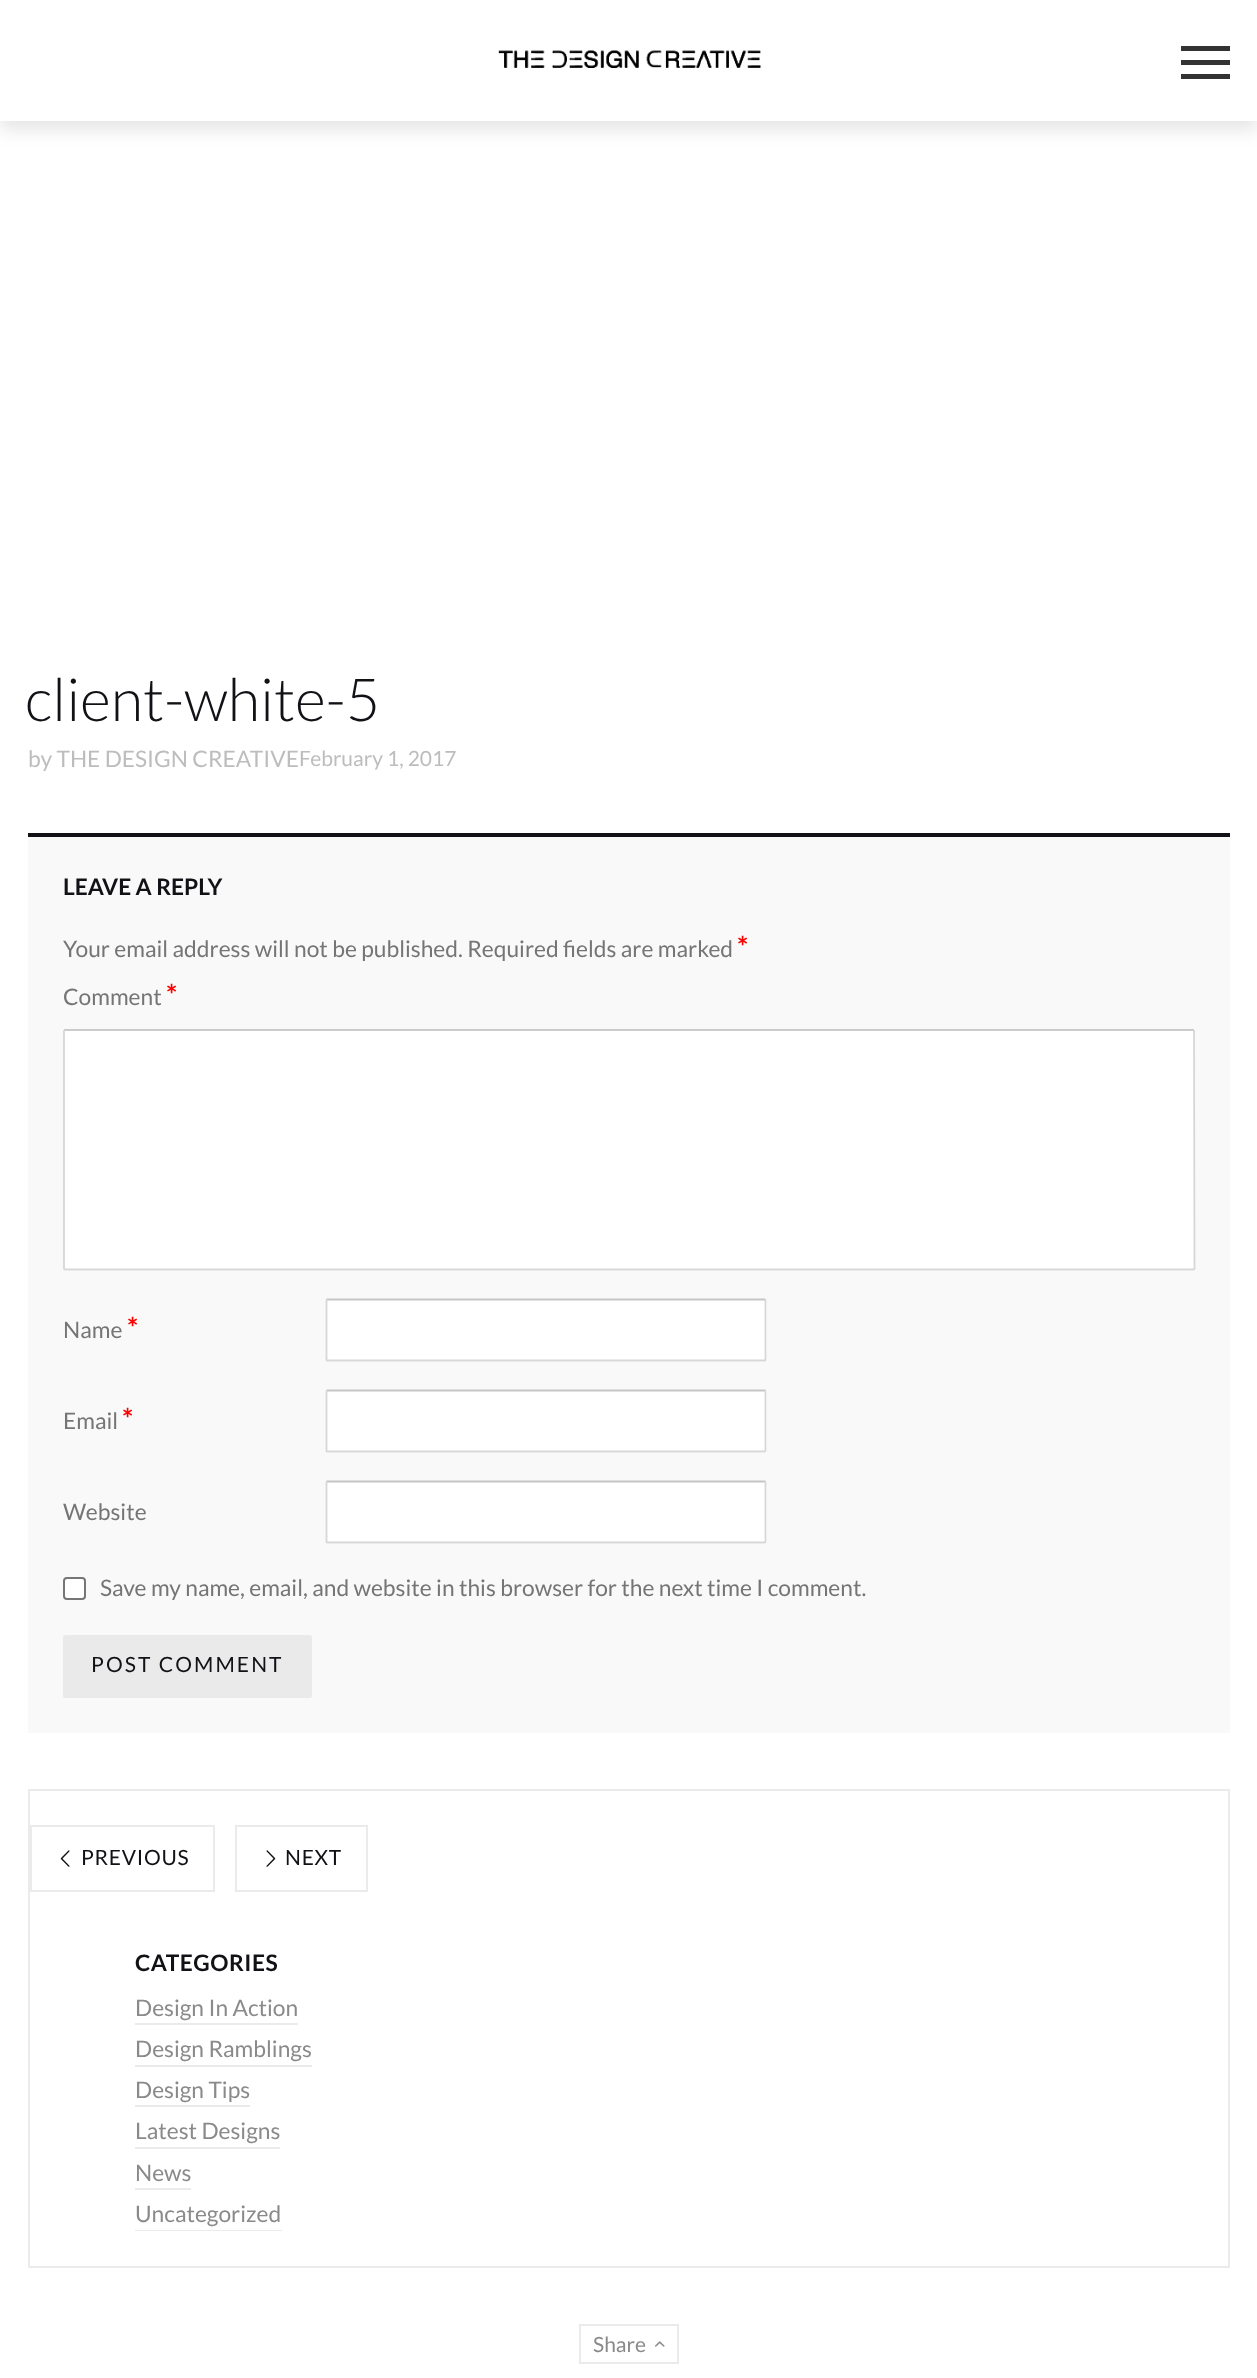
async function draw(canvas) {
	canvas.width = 1257;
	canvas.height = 2378;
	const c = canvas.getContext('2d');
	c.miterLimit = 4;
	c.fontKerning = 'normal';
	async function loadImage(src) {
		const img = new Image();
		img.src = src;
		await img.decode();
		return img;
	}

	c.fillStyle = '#fff';
	c.fillRect(0, 0, 1257, 2378);
	c.fillStyle = '#0000001a';
	c.filter = 'blur(9px)';
	c.beginPath();
	c.rect(0, 9, 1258, 121);
	c.fill();
	c.filter = 'none';
	c.fillStyle = '#fff';
	c.fillRect(0, 0, 1257, 121);
	c.drawImage(await loadImage('img1.png'), 498, 50, 264, 18);
	for (const [x, y, w, h, color] of [
		[1181, 60, 49, 5, '#333'],
		[1181, 46, 49, 5, '#333'],
		[1181, 74, 49, 5, '#333'],
	]) {
		c.fillStyle = color;
		c.fillRect(x, y, w, h);
	}
	c.font = '300 59.5px Lato';
	c.fillStyle = '#111116';
	c.fillText('client-white-5', 25, 721);
	c.font = '22.75px Lato';
	c.fillStyle = '#bdbdbd';
	c.fillText('by THE DESIGN CREATIVE', 28, 767);
	c.font = '21px Lato';
	c.fillText('February 1, 2017', 299, 766);
	c.fillStyle = '#f9f9f9';
	c.fillRect(28, 837, 1202, 896);
	c.fillStyle = '#111116';
	c.fillRect(28, 833, 1202, 4);
	c.font = 'bold 22.75px Lato';
	c.fillText('LEAVE A REPLY', 63, 895);
	c.font = '22.75px Lato';
	c.fillStyle = '#757575';
	c.fillText('Your email address will not be published. Required fields are marked', 63, 957);
	c.font = 'bold 28px Lato';
	c.fillStyle = '#f00';
	c.fillText('*', 737, 957);
	c.font = '22.75px Lato';
	c.fillStyle = '#757575';
	c.fillText('Comment', 63, 1005);
	c.font = 'bold 28px Lato';
	c.fillStyle = '#f00';
	c.fillText('*', 166, 1005);
	c.fillStyle = '#fff';
	c.beginPath();
	c.roundRect(63, 1029, 1132, 242, 2);
	c.fill();
	c.fillStyle = '#cbcbcb';
	c.fillRect(64, 1029, 1130, 2);
	c.beginPath();
	c.moveTo(1194, 1030);
	c.lineTo(1194.5, 1269);
	c.lineTo(1193.5, 1269.5);
	c.lineTo(65, 1269.5);
	c.lineTo(64, 1269);
	c.lineTo(64, 1030);
	c.strokeStyle = '#d7d7d7';
	c.lineWidth = 1.8;
	c.stroke();
	c.font = '22.75px Lato';
	c.fillStyle = '#757575';
	c.fillText('Name', 63, 1338);
	c.font = 'bold 28px Lato';
	c.fillStyle = '#f00';
	c.fillText('*', 127, 1338);
	c.fillStyle = '#fff';
	c.beginPath();
	c.roundRect(326, 1299, 441, 63, 2);
	c.fill();
	c.beginPath();
	c.moveTo(326.5, 1299.5);
	c.lineTo(765.5, 1299.5);
	c.strokeStyle = '#c5c5c5';
	c.stroke();
	c.beginPath();
	c.moveTo(765.5, 1299.5);
	c.lineTo(765.5, 1360);
	c.lineTo(765, 1360.5);
	c.lineTo(327, 1360.5);
	c.lineTo(326.5, 1360);
	c.lineTo(326.5, 1299.5);
	c.strokeStyle = '#d7d7d7';
	c.stroke();
	c.font = '22.75px Lato';
	c.fillStyle = '#757575';
	c.fillText('Email', 63, 1429);
	c.font = 'bold 28px Lato';
	c.fillStyle = '#f00';
	c.fillText('*', 122, 1429);
	c.fillStyle = '#fff';
	c.beginPath();
	c.roundRect(326, 1390, 441, 63, 2);
	c.fill();
	c.beginPath();
	c.moveTo(326.5, 1390.5);
	c.lineTo(765.5, 1390.5);
	c.strokeStyle = '#c5c5c5';
	c.stroke();
	c.beginPath();
	c.moveTo(765.5, 1390.5);
	c.lineTo(765.5, 1451);
	c.lineTo(765, 1451.5);
	c.lineTo(327, 1451.5);
	c.lineTo(326.5, 1451);
	c.lineTo(326.5, 1390.5);
	c.strokeStyle = '#d7d7d7';
	c.stroke();
	c.font = '22.75px Lato';
	c.fillStyle = '#757575';
	c.fillText('Website', 63, 1520);
	c.fillStyle = '#fff';
	c.beginPath();
	c.roundRect(326, 1481, 441, 63, 2);
	c.fill();
	c.beginPath();
	c.moveTo(326.5, 1481.5);
	c.lineTo(765.5, 1481.5);
	c.strokeStyle = '#c5c5c5';
	c.stroke();
	c.beginPath();
	c.moveTo(765.5, 1481.5);
	c.lineTo(765.5, 1542);
	c.lineTo(765, 1542.5);
	c.lineTo(327, 1542.5);
	c.lineTo(326.5, 1542);
	c.lineTo(326.5, 1481.5);
	c.strokeStyle = '#d7d7d7';
	c.stroke();
	c.beginPath();
	c.roundRect(64, 1578, 21, 21, 3);
	c.fill();
	c.strokeStyle = '#767676';
	c.lineWidth = 2;
	c.stroke();
	c.fillStyle = '#757575';
	c.fillText('Save my name, email, and website in this browser for the next time I comment.', 100, 1596);
	c.fillStyle = '#eaeaea';
	c.beginPath();
	c.roundRect(63, 1635, 249, 63, 2);
	c.fill();
	c.letterSpacing = '2.1px';
	c.font = '21px Lato';
	c.fillStyle = '#111116';
	c.fillText('POST COMMENT', 91, 1672);
	c.strokeStyle = '#ebebeb';
	c.strokeRect(29, 1790, 1200, 477);
	c.strokeRect(31, 1826, 183, 65);
	c.drawImage(await loadImage('img2.png'), 60, 1850, 10, 17);
	c.letterSpacing = '0.75px';
	c.fillText('PREVIOUS', 81, 1865);
	c.strokeRect(236, 1826, 131, 65);
	c.drawImage(await loadImage('img3.png'), 266, 1850, 10, 17);
	c.fillText('NEXT', 285, 1865);
	c.letterSpacing = '0.5px';
	c.font = 'bold 22.75px Lato';
	c.fillText('CATEGORIES', 135, 1971);
	c.letterSpacing = '0px';
	c.font = '22.75px Lato';
	c.fillStyle = '#8a8a8a';
	c.fillText('Design In Action', 135, 2016);
	c.fillStyle = '#ebebeb';
	c.fillRect(135, 2023, 163, 2);
	c.fillStyle = '#8a8a8a';
	c.fillText('Design Ramblings', 135, 2057);
	c.fillStyle = '#ebebeb';
	c.fillRect(135, 2065, 177, 2);
	c.fillStyle = '#8a8a8a';
	c.fillText('Design Tips', 135, 2098);
	c.fillStyle = '#ebebeb';
	c.fillRect(135, 2105, 115, 2);
	c.fillStyle = '#8a8a8a';
	c.fillText('Latest Designs', 135, 2139);
	c.fillStyle = '#ebebeb';
	c.fillRect(135, 2147, 145, 2);
	c.fillStyle = '#8a8a8a';
	c.fillText('News', 135, 2181);
	c.fillStyle = '#ebebeb';
	c.fillRect(135, 2188, 56, 2);
	c.fillStyle = '#8a8a8a';
	c.fillText('Uncategorized', 135, 2222);
	c.fillStyle = '#ebebeb';
	c.fillRect(135, 2230, 147, 1);
	c.strokeRect(580, 2325, 98, 38);
	c.font = '21px Lato';
	c.fillStyle = '#8a8a8a';
	c.fillText('Share', 593, 2352);
	c.drawImage(await loadImage('img4.png'), 655, 2341, 10, 6);
}

draw(document.querySelector('canvas'));
